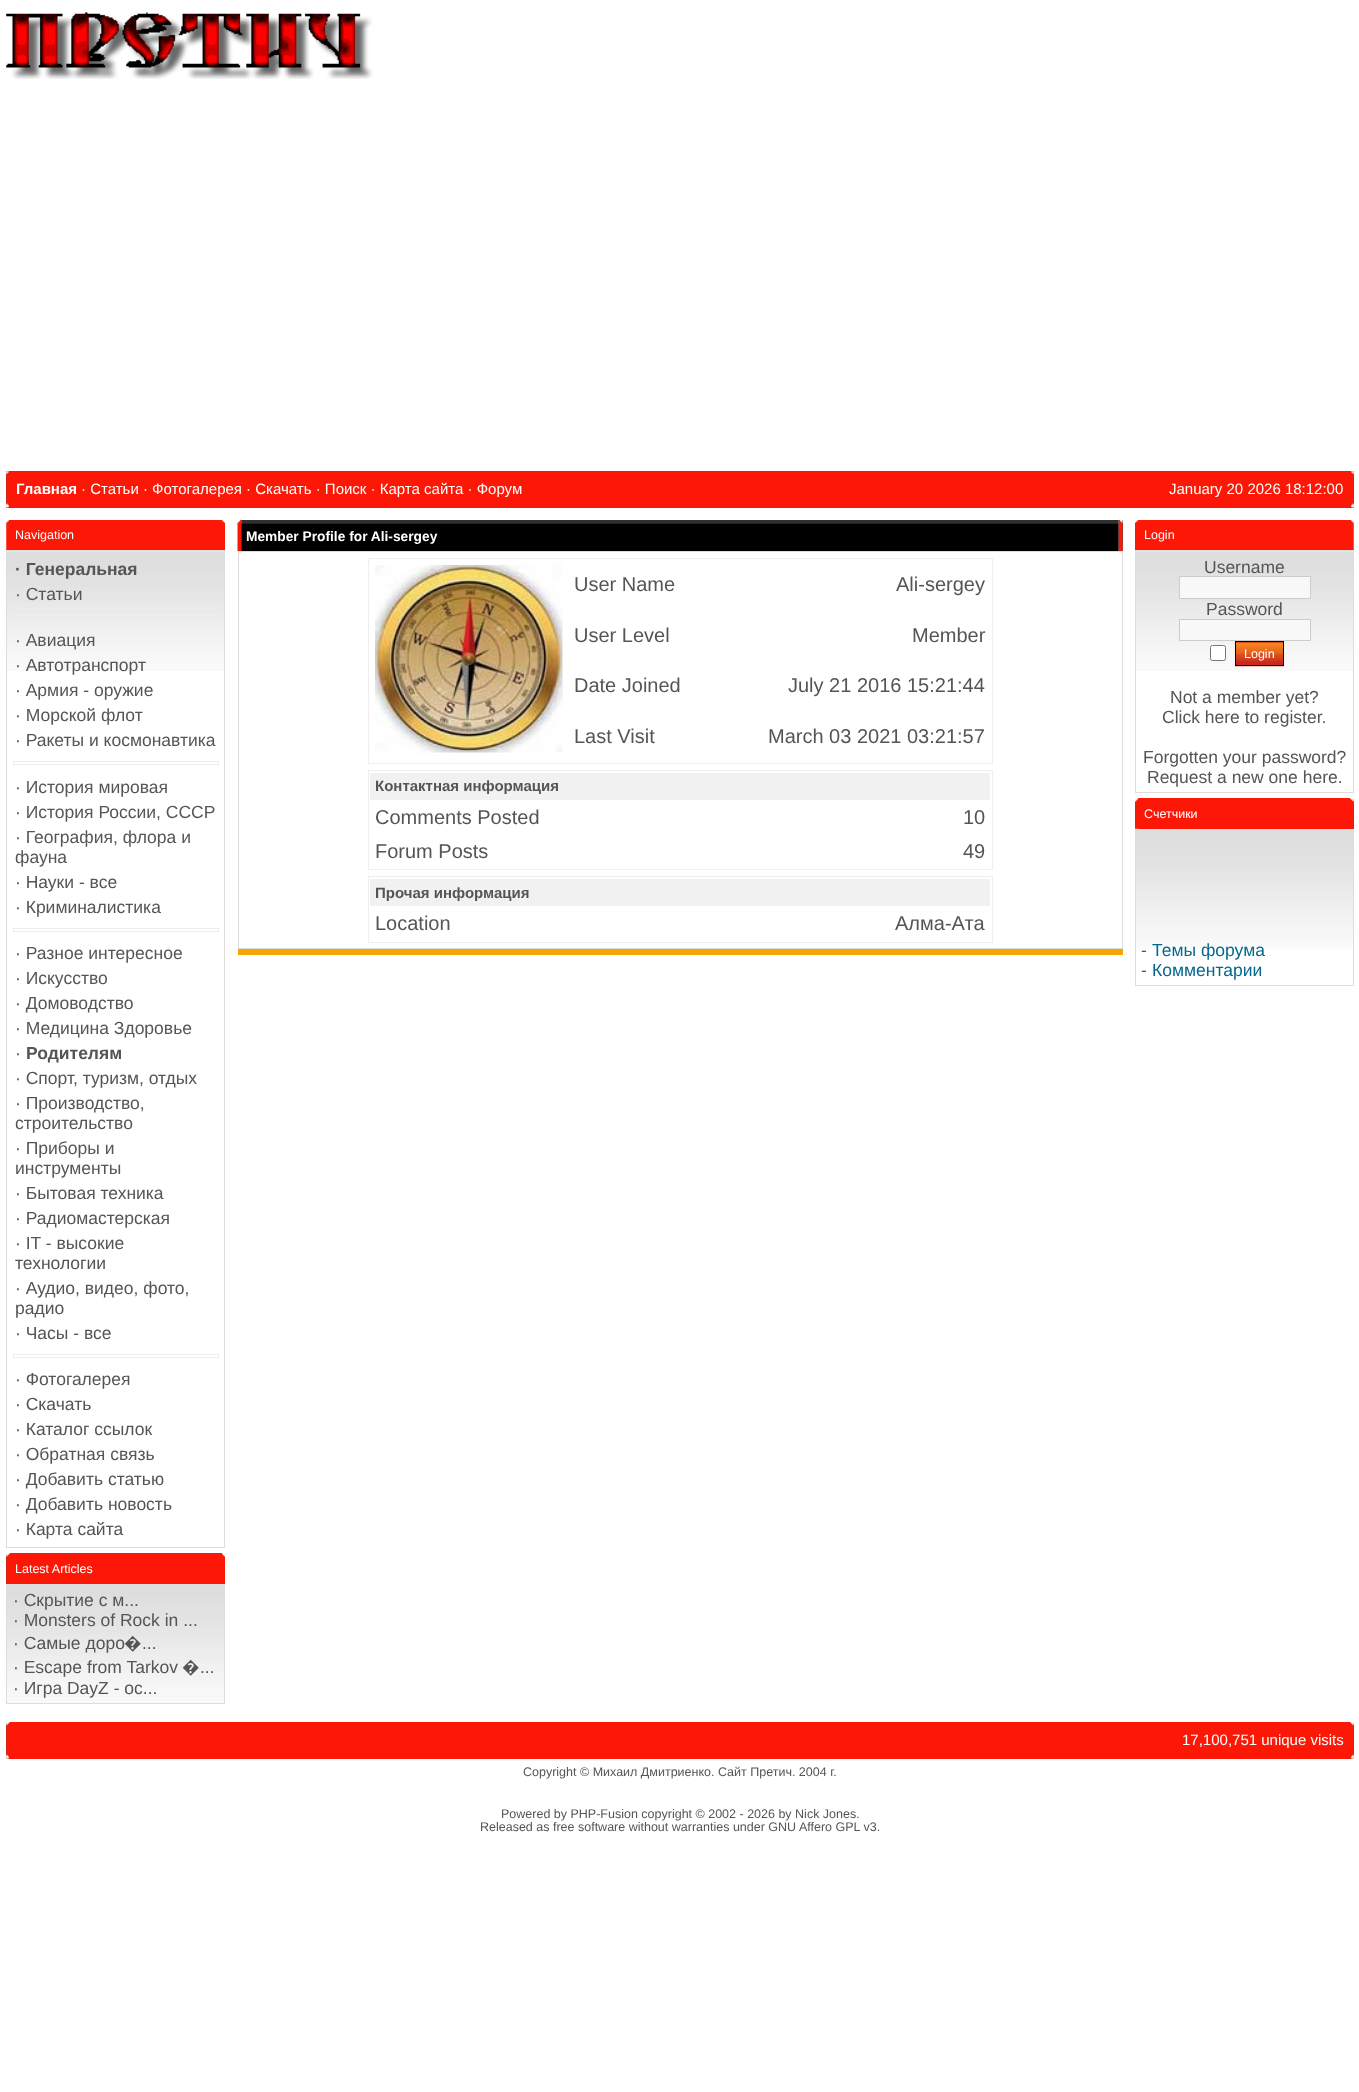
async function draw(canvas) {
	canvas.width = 1359;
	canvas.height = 2092;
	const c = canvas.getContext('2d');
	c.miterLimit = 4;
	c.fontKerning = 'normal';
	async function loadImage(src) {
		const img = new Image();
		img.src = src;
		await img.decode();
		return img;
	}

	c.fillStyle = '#fff';
	c.fillRect(0, 0, 1359, 2092);
	c.drawImage(await loadImage('img1.png'), 6, 12, 367, 67);
	c.fillStyle = '#555';
	c.fillRect(6, 471, 4, 37);
	c.drawImage(await loadImage('img2.png'), 6, 471, 4, 37);
	c.fillStyle = '#fd1706';
	c.fillRect(10, 471, 1340, 37);
	c.font = 'bold 15px Liberation Sans';
	c.fillStyle = '#fff';
	c.fillText('Главная', 16, 494);
	c.font = '15px Liberation Sans';
	c.fillText('· Статьи · Фотогалерея · Скачать · Поиск · Карта сайта · Форум', 81, 494);
	c.fillText('January 20 2026 18:12:00', 1169, 494);
	c.fillStyle = '#555';
	c.fillRect(1350, 471, 4, 37);
	c.drawImage(await loadImage('img3.png'), 1350, 471, 4, 37);
	c.drawImage(await loadImage('img4.png'), 6, 520, 4, 30);
	c.fillStyle = '#fd1706';
	c.fillRect(10, 520, 212, 30);
	c.font = '12.5px Liberation Sans';
	c.fillStyle = '#fff';
	c.fillText('Navigation', 15, 539);
	c.drawImage(await loadImage('img5.png'), 221, 520, 4, 30);
	c.drawImage(await loadImage('img6.png'), 7, 551, 217, 120);
	c.strokeStyle = '#ddd';
	c.strokeRect(6.5, 550.5, 218, 997);
	c.font = 'bold 17.5px Liberation Sans';
	c.fillStyle = '#555';
	c.fillText('· Генеральная', 15, 575);
	c.font = '17.5px Liberation Sans';
	c.fillText('· Статьи', 15, 600);
	c.strokeStyle = '#eee';
	c.strokeRect(13.5, 615.5, 205, 3);
	for (const [text, x, y] of [
		['· Авиация', 15, 646],
		['· Автотранспорт', 15, 671],
		['· Армия - оружие', 15, 696],
		['· Морской флот', 15, 721],
		['· Ракеты и космонавтика', 15, 746],
	]) {
		c.fillText(text, x, y);
	}
	c.strokeRect(13.5, 761.5, 205, 3);
	for (const [text, x, y] of [
		['· История мировая', 15, 793],
		['· История России, СССР', 15, 818],
		['· География, флора и', 15, 843],
		['фауна', 15, 863],
		['· Науки - все', 15, 888],
		['· Криминалистика', 15, 913],
	]) {
		c.fillText(text, x, y);
	}
	c.strokeRect(13.5, 928.5, 205, 3);
	for (const [text, x, y] of [
		['· Разное интересное', 15, 959],
		['· Искусство', 15, 984],
		['· Домоводство', 15, 1009],
		['· Медицина Здоровье', 15, 1034],
		['·', 15, 1059],
	]) {
		c.fillText(text, x, y);
	}
	c.font = 'bold 17.5px Liberation Sans';
	c.fillText('Родителям', 26, 1059);
	c.font = '17.5px Liberation Sans';
	for (const [text, x, y] of [
		['· Спорт, туризм, отдых', 15, 1084],
		['· Производство,', 15, 1109],
		['строительство', 15, 1129],
		['· Приборы и', 15, 1154],
		['инструменты', 15, 1174],
		['· Бытовая техника', 15, 1199],
		['· Радиомастерская', 15, 1224],
		['· IT - высокие', 15, 1249],
		['технологии', 15, 1269],
		['· Аудио, видео, фото,', 15, 1294],
		['радио', 15, 1314],
		['· Часы - все', 15, 1339],
	]) {
		c.fillText(text, x, y);
	}
	c.strokeRect(13.5, 1354.5, 205, 3);
	for (const [text, x, y] of [
		['· Фотогалерея', 15, 1385],
		['· Скачать', 15, 1410],
		['· Каталог ссылок', 15, 1435],
		['· Обратная связь', 15, 1460],
		['· Добавить статью', 15, 1485],
		['· Добавить новость', 15, 1510],
		['· Карта сайта', 15, 1535],
	]) {
		c.fillText(text, x, y);
	}
	c.fillRect(6, 1554, 4, 30);
	c.drawImage(await loadImage('img7.png'), 6, 1553, 4, 31);
	c.fillStyle = '#fd1706';
	c.fillRect(10, 1553, 212, 31);
	c.font = '12.5px Liberation Sans';
	c.fillStyle = '#fff';
	c.fillText('Latest Articles', 15, 1573);
	c.fillStyle = '#555';
	c.fillRect(221, 1554, 4, 30);
	c.drawImage(await loadImage('img8.png'), 221, 1553, 4, 31);
	c.drawImage(await loadImage('img9.png'), 7, 1585, 217, 118);
	c.strokeStyle = '#ddd';
	c.strokeRect(6.5, 1584.5, 218, 119);
	c.font = '17.5px Liberation Sans';
	for (const [text, x, y] of [
		['· Скрытие с м...', 13, 1606],
		['· Monsters of Rock in ...', 13, 1626],
		['· Самые доро', 13, 1649],
	]) {
		c.fillText(text, x, y);
	}
	c.font = '17.5px Noto Sans';
	c.fillText('�', 124, 1649);
	c.font = '17.5px Liberation Sans';
	c.fillText('...', 142, 1649);
	c.fillText('· Escape from Tarkov', 13, 1673);
	c.font = '17.5px Noto Sans';
	c.fillText('�', 182, 1673);
	c.font = '17.5px Liberation Sans';
	c.fillText('...', 200, 1673);
	c.fillText('· Игра DayZ - ос...', 13, 1694);
	c.drawImage(await loadImage('img10.png'), 237, 520, 5, 32);
	c.drawImage(await loadImage('img11.png'), 241, 520, 878, 31);
	c.font = 'bold 13.75px Liberation Sans';
	c.fillStyle = '#fff';
	c.fillText('Member Profile for Ali-sergey', 246, 541);
	c.fillStyle = '#555';
	c.fillRect(1122, 520, 1, 31);
	c.drawImage(await loadImage('img12.png'), 1118, 520, 5, 31);
	c.strokeRect(238.5, 551.5, 884, 397);
	c.strokeStyle = '#eee';
	c.strokeRect(368.5, 558.5, 624, 205);
	c.drawImage(await loadImage('img13.png'), 375, 565, 188, 188);
	c.font = '20px Liberation Sans';
	for (const [text, x, y] of [
		['User Name', 574, 591],
		['Ali-sergey', 896, 591],
		['User Level', 574, 642],
		['Member', 912, 642],
		['Date Joined', 574, 692],
		['July 21 2016 15:21:44', 788, 692],
		['Last Visit', 574, 743],
		['March 03 2021 03:21:57', 768, 743],
	]) {
		c.fillText(text, x, y);
	}
	c.strokeRect(368.5, 770.5, 624, 99);
	c.fillStyle = '#f1f1f1';
	c.fillRect(370, 773, 620, 27);
	c.font = 'bold 15px Liberation Sans';
	c.fillStyle = '#555';
	c.fillText('Контактная информация', 375, 791);
	c.font = '20px Liberation Sans';
	for (const [text, x, y] of [
		['Comments Posted', 375, 824],
		['10', 963, 824],
		['Forum Posts', 375, 858],
		['49', 963, 858],
	]) {
		c.fillText(text, x, y);
	}
	c.strokeRect(368.5, 876.5, 624, 66);
	c.fillStyle = '#f1f1f1';
	c.fillRect(370, 879, 620, 27);
	c.font = 'bold 15px Liberation Sans';
	c.fillStyle = '#555';
	c.fillText('Прочая информация', 375, 898);
	c.font = '20px Liberation Sans';
	c.fillText('Location', 375, 930);
	c.fillText('Алма-Ата', 895, 930);
	c.fillStyle = '#f6a504';
	c.fillRect(238, 949, 885, 6);
	c.drawImage(await loadImage('img14.png'), 1135, 520, 3, 30);
	c.fillStyle = '#fd1706';
	c.fillRect(1138, 520, 212, 30);
	c.font = '12.5px Liberation Sans';
	c.fillStyle = '#fff';
	c.fillText('Login', 1144, 539);
	c.drawImage(await loadImage('img15.png'), 1350, 520, 4, 30);
	c.drawImage(await loadImage('img6.png'), 1136, 551, 217, 120);
	c.strokeStyle = '#ddd';
	c.strokeRect(1135.5, 550.5, 218, 242);
	c.font = '17.5px Liberation Sans';
	c.fillStyle = '#555';
	c.fillText('Username', 1204, 573);
	c.fillStyle = '#f8f8f8';
	c.beginPath();
	c.rect(1179.5, 576.5, 131, 22);
	c.fill();
	c.strokeStyle = '#ccc';
	c.stroke();
	c.fillStyle = '#555';
	c.fillText('Password', 1206, 615);
	c.fillStyle = '#f8f8f8';
	c.beginPath();
	c.rect(1179.5, 619.5, 131, 21);
	c.fill();
	c.stroke();
	c.fillStyle = '#fff';
	c.beginPath();
	c.roundRect(1210.5, 645.5, 15, 15, 2);
	c.fill();
	c.strokeStyle = '#767676';
	c.stroke();
	c.drawImage(await loadImage('img16.png'), 1235, 642, 49, 25);
	c.strokeStyle = '#000';
	c.strokeRect(1235.5, 641.5, 48, 24);
	c.font = '12.5px Liberation Sans';
	c.fillText('Login', 1244, 658);
	c.font = '17.5px Liberation Sans';
	c.fillStyle = '#555';
	for (const [text, x, y] of [
		['Not a member yet?', 1170, 703],
		['Click here to register.', 1162, 723],
		['Forgotten your password?', 1143, 763],
		['Request a new one here.', 1147, 783],
	]) {
		c.fillText(text, x, y);
	}
	c.drawImage(await loadImage('img17.png'), 1135, 798, 3, 31);
	c.fillStyle = '#fd1706';
	c.fillRect(1138, 798, 212, 31);
	c.font = '12.5px Liberation Sans';
	c.fillStyle = '#fff';
	c.fillText('Счетчики', 1144, 818);
	c.fillStyle = '#555';
	c.fillRect(1350, 799, 4, 30);
	c.drawImage(await loadImage('img18.png'), 1350, 798, 4, 31);
	c.drawImage(await loadImage('img19.png'), 1136, 830, 217, 119);
	c.strokeStyle = '#ddd';
	c.strokeRect(1135.5, 829.5, 218, 156);
	c.font = '17.5px Liberation Sans';
	c.fillText('-', 1141, 956);
	c.fillStyle = '#04688d';
	c.fillText('Темы форума', 1152, 956);
	c.fillStyle = '#555';
	c.fillText('-', 1141, 976);
	c.fillStyle = '#04688d';
	c.fillText('Комментарии', 1152, 976);
	c.fillStyle = '#555';
	c.fillRect(6, 1723, 4, 36);
	c.drawImage(await loadImage('img20.png'), 6, 1722, 4, 37);
	c.fillStyle = '#fd1706';
	c.fillRect(10, 1722, 1340, 37);
	c.fillStyle = '#555';
	c.fillRect(1350, 1723, 4, 36);
	c.drawImage(await loadImage('img21.png'), 1350, 1722, 4, 37);
	c.font = '15px Liberation Sans';
	c.fillStyle = '#fff';
	c.fillText('17,100,751 unique visits', 1182, 1745);
	c.font = '12.5px Liberation Sans';
	c.fillStyle = '#555';
	for (const [text, x, y] of [
		['Copyright © Михаил Дмитриенко. Сайт Претич. 2004 г.', 523, 1776],
		['Powered by PHP-Fusion copyright © 2002 - 2026 by Nick Jones.', 501, 1818],
		['Released as free software without warranties under GNU Affero GPL v3.', 480, 1831],
	]) {
		c.fillText(text, x, y);
	}
}

draw(document.querySelector('canvas'));
